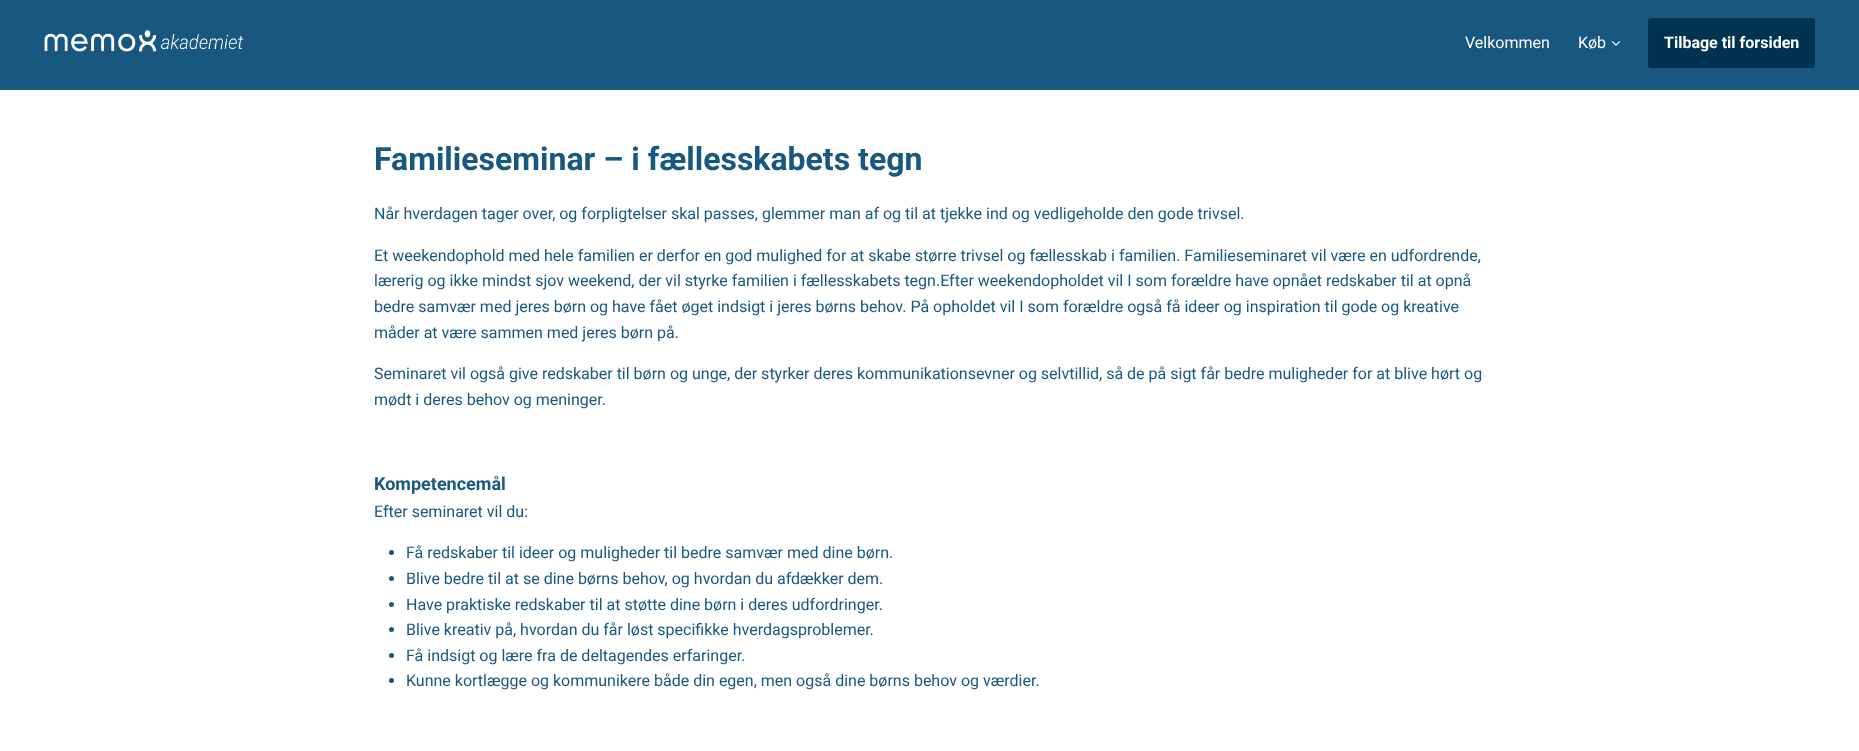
async function draw(canvas) {
	canvas.width = 1859;
	canvas.height = 751;
	const c = canvas.getContext('2d');
	c.miterLimit = 4;
	c.fontKerning = 'normal';
	async function loadImage(src) {
		const img = new Image();
		img.src = src;
		await img.decode();
		return img;
	}

	c.fillStyle = '#fff';
	c.fillRect(0, 0, 1859, 751);
	c.fillStyle = '#185780';
	c.fillRect(0, 0, 1859, 90);
	c.drawImage(await loadImage('img1.png'), 44, 30, 200, 22);
	c.font = '16px Roboto';
	c.fillStyle = '#fff';
	c.fillText('Velkommen', 1465, 48);
	c.fillText('Køb', 1578, 48);
	c.drawImage(await loadImage('img2.png'), 1612, 41, 8, 5);
	c.fillStyle = '#003351';
	c.beginPath();
	c.moveTo(1651, 20);
	c.lineTo(1812, 20);
	c.bezierCurveTo(1813, 20, 1813, 20, 1813, 21);
	c.lineTo(1813, 65);
	c.lineTo(1650, 65);
	c.lineTo(1650, 21);
	c.closePath();
	c.fill();
	c.beginPath();
	c.roundRect(1649, 19, 165, 48, 2);
	c.strokeStyle = '#003351';
	c.lineWidth = 2;
	c.stroke();
	c.fillRect(1650, 65, 164, 1);
	c.font = 'bold 16px Roboto';
	c.fillStyle = '#fff';
	c.fillText('Tilbage til forsiden', 1664, 48);
	c.font = 'bold 32px Roboto';
	c.fillStyle = '#185780';
	c.fillText('Familieseminar – i fællesskabets tegn', 374, 170);
	c.font = '16px Roboto';
	for (const [text, x, y] of [
		['Når hverdagen tager over, og forpligtelser skal passes, glemmer man af og til at tjekke ind og vedligeholde den gode trivsel.', 374, 219],
		['Et weekendophold med hele familien er derfor en god mulighed for at skabe større trivsel og fællesskab i familien. Familieseminaret vil være en udfordrende,', 374, 261],
		['lærerig og ikke mindst sjov weekend, der vil styrke familien i fællesskabets tegn.Efter weekendopholdet vil I som forældre have opnået redskaber til at opnå', 374, 286],
		['bedre samvær med jeres børn og have fået øget indsigt i jeres børns behov. På opholdet vil I som forældre også få ideer og inspiration til gode og kreative', 374, 312],
		['måder at være sammen med jeres børn på.', 374, 338],
		['Seminaret vil også give redskaber til børn og unge, der styrker deres kommunikationsevner og selvtillid, så de på sigt får bedre muligheder for at blive hørt og', 374, 379],
		['mødt i deres behov og meninger.', 374, 405],
	]) {
		c.fillText(text, x, y);
	}
	c.font = 'bold 18px Roboto';
	c.fillText('Kompetencemål', 374, 490);
	c.font = '16px Roboto';
	c.fillText('Efter seminaret vil du:', 374, 517);
	c.beginPath();
	c.arc(391.5, 552.5, 2.5, 0, 2 * Math.PI);
	c.fill();
	c.fillText('Få redskaber til ideer og muligheder til bedre samvær med dine børn.', 406, 558);
	c.beginPath();
	c.arc(391.5, 578.5, 2.5, 0, 2 * Math.PI);
	c.fill();
	c.fillText('Blive bedre til at se dine børns behov, og hvordan du afdækker dem.', 406, 584);
	c.beginPath();
	c.arc(391.5, 604.5, 2.5, 0, 2 * Math.PI);
	c.fill();
	c.fillText('Have praktiske redskaber til at støtte dine børn i deres udfordringer.', 406, 610);
	c.beginPath();
	c.arc(391.5, 629.5, 2.5, 0, 2 * Math.PI);
	c.fill();
	c.fillText('Blive kreativ på, hvordan du får løst specifikke hverdagsproblemer.', 406, 635);
	c.beginPath();
	c.arc(391.5, 655.5, 2.5, 0, 2 * Math.PI);
	c.fill();
	c.fillText('Få indsigt og lære fra de deltagendes erfaringer.', 406, 661);
	c.beginPath();
	c.arc(391.5, 680.5, 2.5, 0, 2 * Math.PI);
	c.fill();
	c.fillText('Kunne kortlægge og kommunikere både din egen, men også dine børns behov og værdier.', 406, 686);
}

draw(document.querySelector('canvas'));
